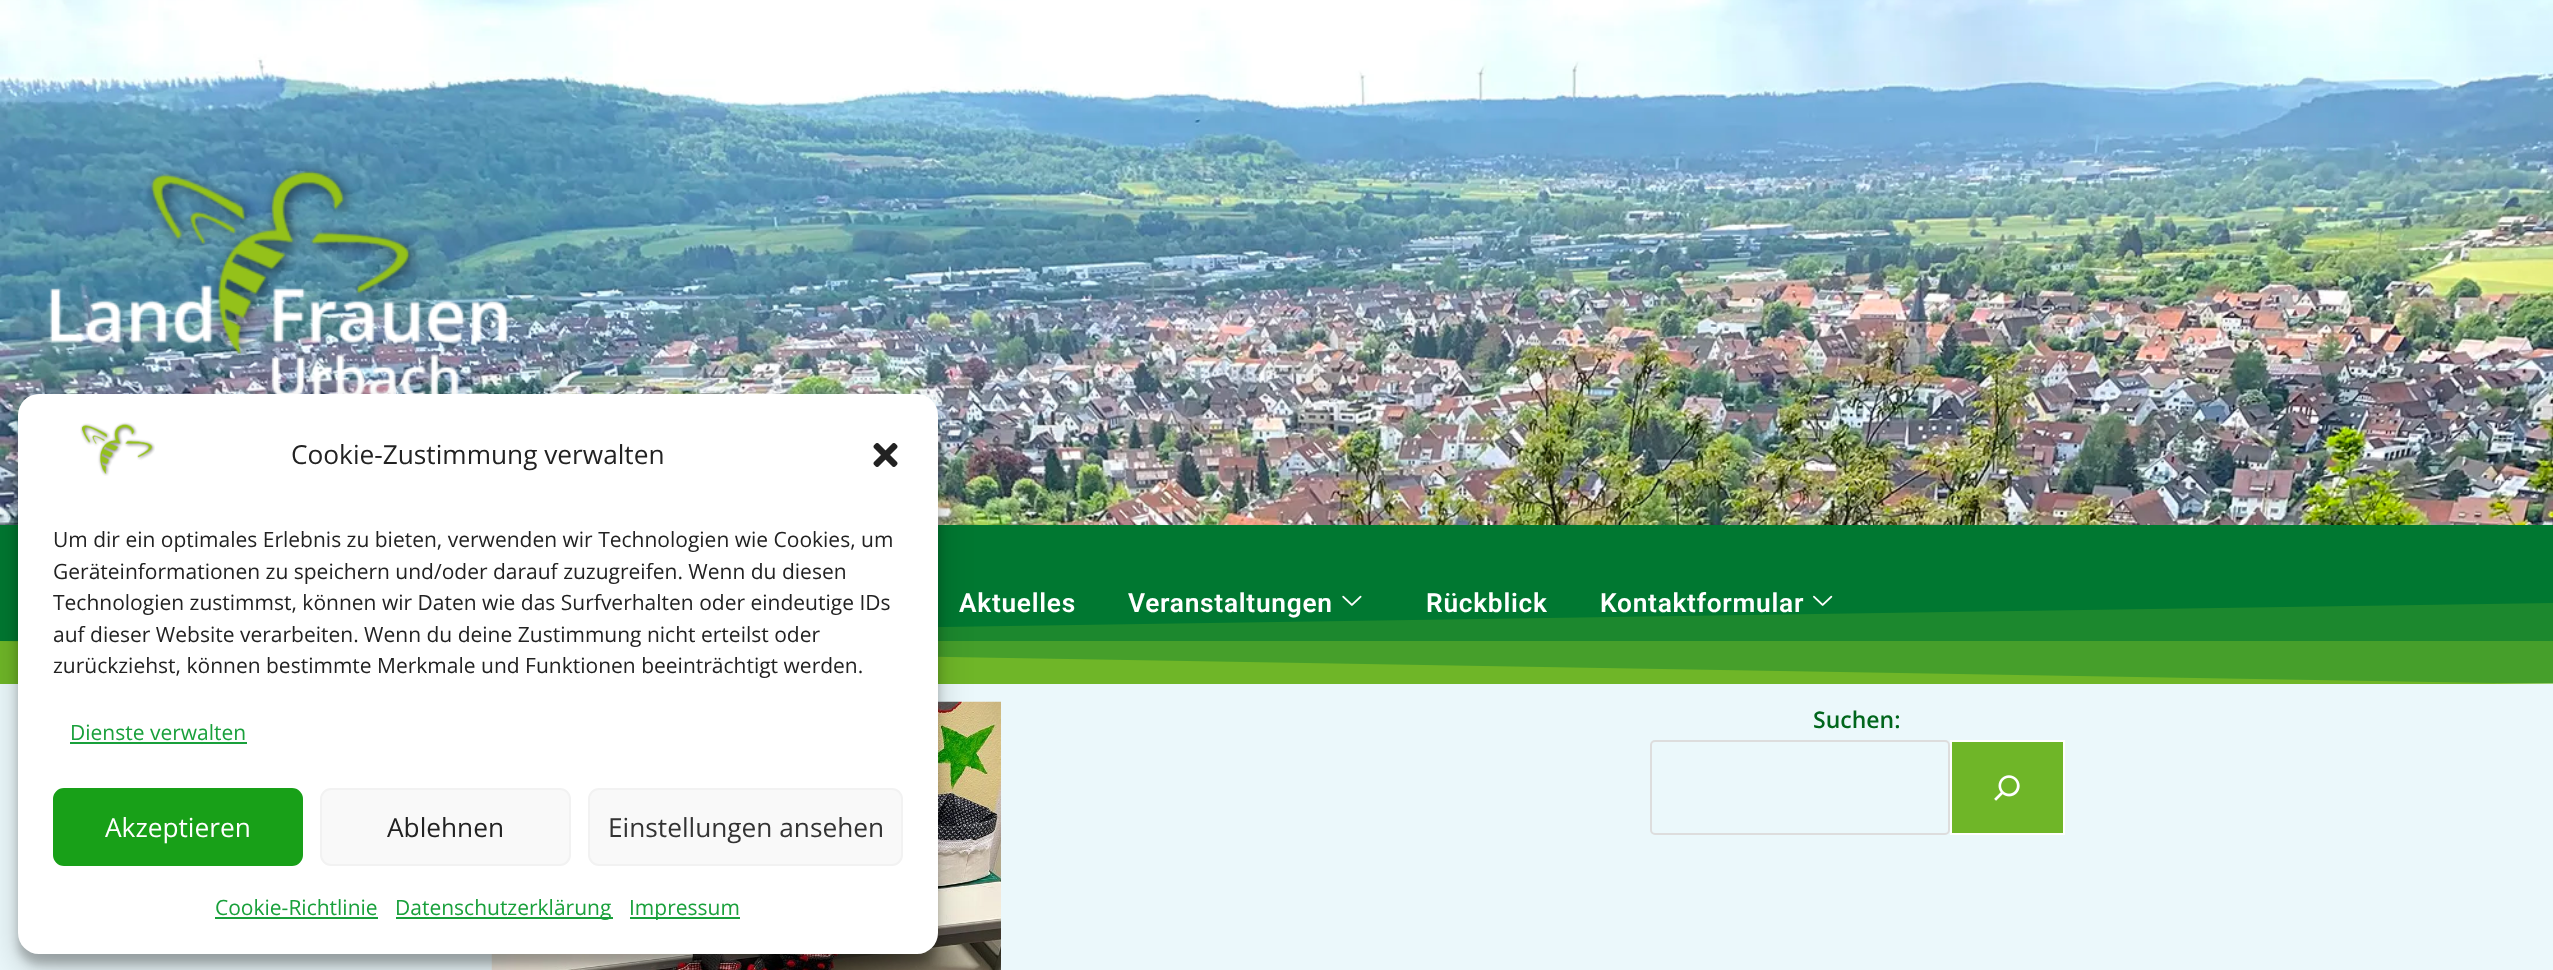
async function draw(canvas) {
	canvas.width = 2553;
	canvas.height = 970;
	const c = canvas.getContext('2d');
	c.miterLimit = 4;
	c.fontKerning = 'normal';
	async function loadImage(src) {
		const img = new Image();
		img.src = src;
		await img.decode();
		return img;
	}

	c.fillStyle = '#ebf8fb';
	c.fillRect(0, 0, 2553, 970);
	c.fillStyle = '#add792';
	c.fillRect(2498, 683, 55, 1);
	c.drawImage(await loadImage('img3.png'), 0, 0, 2553, 525);
	c.drawImage(await loadImage('img4.png'), 49, 164, 460, 230);
	c.fillStyle = '#007831';
	c.fillRect(0, 525, 2553, 116);
	c.fillStyle = '#38972d';
	c.fillRect(0, 641, 2553, 42);
	c.fillStyle = '#6fb628';
	c.beginPath();
	c.moveTo(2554, 684);
	c.lineTo(-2, 684);
	c.lineTo(-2, 641);
	c.closePath();
	c.fill();
	c.fillStyle = '#6fb62840';
	c.beginPath();
	c.moveTo(-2, 684);
	c.lineTo(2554, 684);
	c.lineTo(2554, 603);
	c.lineTo(-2, 641);
	c.closePath();
	c.fill();
	c.drawImage(await loadImage('img7.png'), 491, 701, 510, 269);
	c.fillStyle = '#0000003b';
	c.filter = 'blur(5px)';
	c.beginPath();
	c.roundRect(18, 404, 920, 560, 21);
	c.fill();
	c.filter = 'none';
	c.fillStyle = '#00000030';
	c.filter = 'blur(17.5px)';
	c.beginPath();
	c.roundRect(18, 411, 920, 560, 21);
	c.fill();
	c.filter = 'none';
	c.fillStyle = '#fff';
	c.beginPath();
	c.roundRect(18, 394, 920, 560, 21);
	c.fill();
	c.drawImage(await loadImage('img1.png'), 80, 422, 75, 54);
	c.font = '26.25px Open Sans';
	c.fillStyle = '#222';
	c.fillText('Cookie-Zustimmung verwalten', 291, 464);
	c.drawImage(await loadImage('img2.png'), 873, 443, 25, 24);
	c.font = '21px Open Sans';
	for (const [text, x, y] of [
		['Um dir ein optimales Erlebnis zu bieten, verwenden wir Technologien wie Cookies, um', 53, 547],
		['Geräteinformationen zu speichern und/oder darauf zuzugreifen. Wenn du diesen', 53, 579],
		['Technologien zustimmst, können wir Daten wie das Surfverhalten oder eindeutige IDs', 53, 610],
		['auf dieser Website verarbeiten. Wenn du deine Zustimmung nicht erteilst oder', 53, 642],
		['zurückziehst, können bestimmte Merkmale und Funktionen beeinträchtigt werden.', 53, 673],
	]) {
		c.fillText(text, x, y);
	}
	c.fillStyle = '#19a03b';
	c.fillText('Dienste verwalten', 70, 740);
	c.fillRect(70, 742, 177, 2);
	c.fillStyle = '#18a018';
	c.beginPath();
	c.roundRect(54, 789, 248, 76, 10);
	c.fill();
	c.strokeStyle = '#18a018';
	c.lineWidth = 2;
	c.stroke();
	c.font = '26.25px Open Sans';
	c.fillStyle = '#fff';
	c.fillText('Akzeptieren', 105, 837);
	c.fillStyle = '#f9f9f9';
	c.beginPath();
	c.roundRect(321, 789, 249, 76, 10);
	c.fill();
	c.strokeStyle = '#f2f2f2';
	c.stroke();
	c.fillStyle = '#222';
	c.fillText('Ablehnen', 387, 837);
	c.fillStyle = '#f9f9f9';
	c.beginPath();
	c.roundRect(589, 789, 313, 76, 10);
	c.fill();
	c.stroke();
	c.fillStyle = '#333';
	c.fillText('Einstellungen ansehen', 608, 837);
	c.font = '21px Open Sans';
	c.fillStyle = '#19a03b';
	c.fillText('Cookie-Richtlinie', 215, 915);
	c.fillRect(215, 917, 163, 2);
	c.fillRect(396, 917, 217, 2);
	c.fillText('Datenschutzerklärung', 395, 915);
	c.fillRect(630, 917, 110, 2);
	c.fillText('Impressum', 629, 915);
	c.letterSpacing = '0.75px';
	c.font = '600 26.25px Roboto';
	c.fillStyle = '#fff';
	c.fillText('Aktuelles', 959, 612);
	c.fillText('Veranstaltungen', 1128, 612);
	c.drawImage(await loadImage('img5.png'), 1342, 595, 20, 11);
	c.fillText('Rückblick', 1426, 612);
	c.fillText('Kontaktformular', 1600, 612);
	c.drawImage(await loadImage('img6.png'), 1813, 595, 20, 11);
	c.letterSpacing = '0px';
	c.font = '600 23px Open Sans';
	c.fillStyle = '#00661c';
	c.fillText('Suchen:', 1813, 728);
	c.beginPath();
	c.roundRect(1651, 741, 298, 93, 4);
	c.strokeStyle = '#ddd';
	c.stroke();
	c.fillStyle = '#6fb628';
	c.beginPath();
	c.rect(1951, 741, 113, 93);
	c.fill();
	c.strokeStyle = '#fff';
	c.stroke();
	c.drawImage(await loadImage('img8.png'), 1994, 775, 26, 26);
}

draw(document.querySelector('canvas'));
